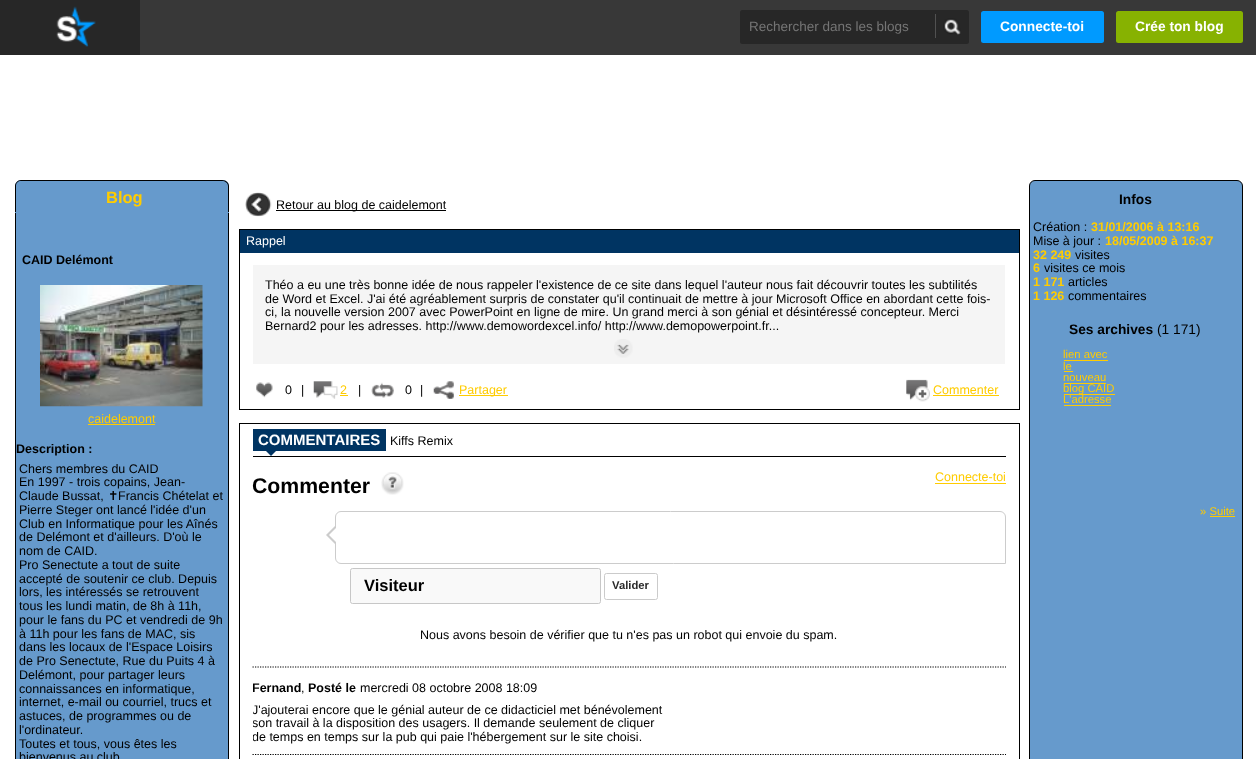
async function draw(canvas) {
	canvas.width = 1256;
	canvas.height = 759;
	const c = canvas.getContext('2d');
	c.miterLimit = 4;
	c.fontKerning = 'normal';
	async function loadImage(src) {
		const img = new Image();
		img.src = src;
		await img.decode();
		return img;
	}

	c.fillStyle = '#fff';
	c.fillRect(0, 0, 1256, 759);
	c.fillStyle = '#383838';
	c.fillRect(140, 0, 1116, 55);
	c.fillStyle = '#272727';
	c.fillRect(0, 0, 140, 55);
	c.drawImage(await loadImage('img1.png'), 56, 6, 40, 41);
	c.beginPath();
	c.roundRect(741.5, 11.5, 226, 31, 1);
	c.fill();
	c.strokeStyle = '#272727';
	c.lineWidth = 3;
	c.stroke();
	c.fillStyle = '#515151';
	c.fillRect(935, 14, 1, 24);
	c.font = '13.5px Liberation Sans';
	c.fillStyle = '#757575';
	c.fillText('Rechercher dans les blogs', 749, 31);
	c.drawImage(await loadImage('img2.png'), 943, 18, 18, 17);
	c.fillStyle = '#009aff';
	c.beginPath();
	c.roundRect(981, 11, 123, 32, 2.5);
	c.fill();
	c.font = 'bold 13.75px Liberation Sans';
	c.fillStyle = '#fff';
	c.fillText('Connecte-toi', 1000, 31);
	c.fillStyle = '#87b201';
	c.beginPath();
	c.roundRect(1116, 11, 127, 32, 2.5);
	c.fill();
	c.fillStyle = '#fff';
	c.fillText('Crée ton blog', 1135, 31);
	c.fillStyle = '#669acc';
	c.fillRect(16, 213, 212, 546);
	c.fillStyle = '#000';
	c.beginPath();
	c.moveTo(15, 212);
	c.lineTo(229, 212);
	c.lineTo(229, 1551);
	c.bezierCurveTo(229, 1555, 226, 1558, 222, 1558);
	c.lineTo(21, 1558);
	c.bezierCurveTo(18, 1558, 15, 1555, 15, 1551);
	c.closePath();
	c.moveTo(16, 212);
	c.lineTo(228, 212);
	c.lineTo(228, 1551);
	c.bezierCurveTo(228, 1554, 225, 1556, 222, 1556);
	c.lineTo(21, 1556);
	c.bezierCurveTo(18, 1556, 16, 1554, 16, 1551);
	c.closePath();
	c.fill('evenodd');
	c.fillStyle = '#669acc';
	c.beginPath();
	c.roundRect(15, 180, 214, 33, [6, 6, 0, 0]);
	c.fill();
	c.fillStyle = '#000';
	c.beginPath();
	c.moveTo(21, 180);
	c.lineTo(222, 180);
	c.bezierCurveTo(226, 180, 229, 183, 229, 186);
	c.lineTo(229, 212);
	c.lineTo(15, 212);
	c.lineTo(15, 186);
	c.bezierCurveTo(15, 183, 18, 180, 21, 180);
	c.closePath();
	c.moveTo(21, 181);
	c.lineTo(222, 181);
	c.bezierCurveTo(225, 181, 228, 183, 228, 186);
	c.lineTo(228, 212);
	c.lineTo(16, 212);
	c.lineTo(16, 186);
	c.bezierCurveTo(16, 183, 18, 181, 21, 181);
	c.closePath();
	c.fill('evenodd');
	c.font = 'bold 16.5px Liberation Sans';
	c.fillStyle = '#fc0';
	c.fillText('Blog', 106, 203);
	c.font = 'bold 12.5px Liberation Sans';
	c.fillStyle = '#000';
	c.fillText('CAID Delémont', 22, 264);
	c.drawImage(await loadImage('img3.png'), 40, 285, 163, 122);
	c.font = '12.5px Liberation Sans';
	c.fillStyle = '#fc0';
	c.fillText('caidelemont', 88, 423);
	c.fillRect(88, 424, 67, 1);
	c.font = 'bold 12.5px Liberation Sans';
	c.fillStyle = '#000';
	c.fillText('Description :', 16, 453);
	c.font = '12.5px Liberation Sans';
	for (const [text, x, y] of [
		['Chers membres du CAID', 19, 473],
		['En 1997 - trois copains, Jean-', 19, 486],
		['Claude Bussat,', 19, 500],
	]) {
		c.fillText(text, x, y);
	}
	c.font = '12.5px DejaVu Sans';
	c.fillText('✝', 108, 500);
	c.font = '12.5px Liberation Sans';
	for (const [text, x, y] of [
		['Francis Chételat et', 118, 500],
		['Pierre Steger ont lancé l\'idée d\'un', 19, 514],
		['Club en Informatique pour les Aînés', 19, 528],
		['de Delémont et d\'ailleurs. D\'où le', 19, 541],
		['nom de CAID.', 19, 555],
		['Pro Senectute a tout de suite', 19, 569],
		['accepté de soutenir ce club. Depuis', 19, 583],
		['lors, les intéressés se retrouvent', 19, 596],
		['tous les lundi matin, de 8h à 11h,', 19, 610],
		['pour le fans du PC et vendredi de 9h', 19, 624],
		['à 11h pour les fans de MAC, sis', 19, 638],
		['dans les locaux de l\'Espace Loisirs', 19, 651],
		['de Pro Senectute, Rue du Puits 4 à', 19, 665],
		['Delémont, pour partager leurs', 19, 679],
		['connaissances en informatique,', 19, 693],
		['internet, e-mail ou courriel, trucs et', 19, 706],
		['astuces, de programmes ou de', 19, 720],
		['l\'ordinateur.', 19, 734],
		['Toutes et tous, vous êtes les', 19, 748],
		['bienvenus au club', 19, 761],
	]) {
		c.fillText(text, x, y);
	}
	c.drawImage(await loadImage('img4.png'), 245, 192, 27, 25);
	c.fillRect(276, 210, 170, 1);
	c.fillText('Retour au blog de caidelemont', 276, 209);
	c.strokeStyle = '#000';
	c.lineWidth = 1;
	c.strokeRect(239.5, 229.5, 780, 180);
	c.fillStyle = '#003462';
	c.fillRect(240, 230, 779, 23);
	c.fillStyle = '#fff';
	c.fillText('Rappel', 246, 245);
	c.fillStyle = '#f5f5f5';
	c.fillRect(253, 265, 752, 99);
	c.fillStyle = '#000';
	for (const [text, x, y] of [
		['Théo a eu une très bonne idée de nous rappeler l\'existence de ce site dans lequel l\'auteur nous fait découvrir toutes les subtilités', 265, 289],
		['de Word et Excel. J\'ai été agréablement surpris de constater qu\'il continuait de mettre à jour Microsoft Office en abordant cette fois-', 265, 303],
		['ci, la nouvelle version 2007 avec PowerPoint en ligne de mire. Un grand merci à son génial et désintéressé concepteur. Merci', 265, 316],
		['Bernard2 pour les adresses. http://www.demowordexcel.info/ http://www.demopowerpoint.fr...', 265, 330],
	]) {
		c.fillText(text, x, y);
	}
	c.drawImage(await loadImage('img5.png'), 614, 339, 19, 19);
	c.drawImage(await loadImage('img6.png'), 256, 382, 17, 16);
	c.fillText('0', 285, 394);
	c.fillText('|', 301, 394);
	c.drawImage(await loadImage('img7.png'), 313, 381, 25, 18);
	c.fillStyle = '#fc0';
	c.fillText('2', 340, 394);
	c.fillRect(340, 395, 8, 1);
	c.fillStyle = '#000';
	c.fillText('|', 358, 394);
	c.drawImage(await loadImage('img8.png'), 371, 382, 23, 16);
	c.fillText('0', 405, 394);
	c.fillText('|', 420, 394);
	c.drawImage(await loadImage('img9.png'), 433, 381, 21, 18);
	c.fillStyle = '#fc0';
	c.fillRect(459, 395, 49, 1);
	c.fillText('Partager', 459, 394);
	c.drawImage(await loadImage('img10.png'), 906, 379, 24, 23);
	c.fillText('Commenter', 933, 394);
	c.fillRect(933, 395, 66, 1);
	c.strokeRect(239.5, 423.5, 780, 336);
	c.fillStyle = '#000';
	c.fillRect(253, 456, 753, 1);
	c.fillStyle = '#003462';
	c.fillRect(253, 429, 133, 22);
	c.font = 'bold 15px Liberation Sans';
	c.fillStyle = '#fff';
	c.fillText('COMMENTAIRES', 258, 445);
	c.fillStyle = '#003462';
	c.beginPath();
	c.moveTo(266, 451);
	c.lineTo(276, 451);
	c.lineTo(271, 456);
	c.closePath();
	c.fill();
	c.font = '12.5px Liberation Sans';
	c.fillStyle = '#000';
	c.fillText('Kiffs Remix', 390, 445);
	c.fillStyle = '#fc0';
	c.fillText('Connecte-toi', 935, 481);
	c.fillRect(935, 483, 71, 1);
	c.font = 'bold 21.25px Liberation Sans';
	c.fillStyle = '#000';
	c.fillText('Commenter', 252, 493);
	c.drawImage(await loadImage('img11.png'), 381, 472, 23, 23);
	c.beginPath();
	c.roundRect(335.5, 511.5, 670, 52, [5.5, 5.5, 0, 5.5]);
	c.strokeStyle = '#ccc';
	c.stroke();
	c.fillStyle = '#ccc';
	c.beginPath();
	c.moveTo(336, 525);
	c.lineTo(336, 545);
	c.lineTo(326, 535);
	c.closePath();
	c.fill();
	c.fillStyle = '#fff';
	c.beginPath();
	c.moveTo(339, 525);
	c.lineTo(339, 545);
	c.lineTo(329, 535);
	c.closePath();
	c.fill();
	c.fillStyle = '#f9f9f9';
	c.beginPath();
	c.roundRect(350.5, 568.5, 250, 35, 2);
	c.fill();
	c.strokeStyle = '#c7c7c7';
	c.stroke();
	c.font = 'bold 16.5px Liberation Sans';
	c.fillStyle = '#000';
	c.fillText('Visiteur', 364, 591);
	c.beginPath();
	c.roundRect(604.5, 573.5, 53, 26, 2);
	c.strokeStyle = '#cbcbcb';
	c.stroke();
	c.font = 'bold 11.25px Liberation Sans';
	c.fillStyle = '#292929';
	c.fillText('Valider', 612, 589);
	c.font = '12.5px Liberation Sans';
	c.fillStyle = '#000';
	c.fillText('Nous avons besoin de vérifier que tu n\'es pas un robot qui envoie du spam.', 420, 639);
	c.beginPath();
	c.moveTo(252.5, 667);
	c.lineTo(1006, 667);
	c.strokeStyle = '#000';
	c.lineWidth = 1.2;
	c.setLineDash([1.25, 1.25]);
	c.stroke();
	c.beginPath();
	c.moveTo(252.5, 754.5);
	c.lineTo(1006, 754.5);
	c.stroke();
	c.save();
	c.beginPath();
	c.rect(253, 678, 753, 21);
	c.clip();
	c.font = 'bold 12.5px Liberation Sans';
	c.fillText('Fernand', 252, 692);
	c.restore();
	c.fillText(',', 301, 692);
	c.font = 'bold 12.5px Liberation Sans';
	c.fillText('Posté le', 308, 692);
	c.font = '12.5px Liberation Sans';
	c.fillText('mercredi 08 octobre 2008 18:09', 360, 692);
	c.save();
	c.beginPath();
	c.rect(253, 703, 753, 41);
	c.clip();
	for (const [text, x, y] of [
		['J\'ajouterai encore que le génial auteur de ce didacticiel met bénévolement', 252, 714],
		['son travail à la disposition des usagers. Il demande seulement de cliquer', 252, 727],
		['de temps en temps sur la pub qui paie l\'hébergement sur le site choisi.', 252, 741],
	]) {
		c.fillText(text, x, y);
	}
	c.restore();
	c.fillStyle = '#669acc';
	c.beginPath();
	c.roundRect(1029.5, 180.5, 213, 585, 5.5);
	c.fill();
	c.lineWidth = 1;
	c.setLineDash([]);
	c.stroke();
	c.font = 'bold 13.75px Liberation Sans';
	c.fillStyle = '#000';
	c.fillText('Infos', 1119, 204);
	c.font = '12.5px Liberation Sans';
	c.fillText('Création :', 1033, 231);
	c.font = 'bold 12.5px Liberation Sans';
	c.fillStyle = '#fc0';
	c.fillText('31/01/2006 à 13:16', 1091, 231);
	c.font = '12.5px Liberation Sans';
	c.fillStyle = '#000';
	c.fillText('Mise à jour :', 1033, 245);
	c.font = 'bold 12.5px Liberation Sans';
	c.fillStyle = '#fc0';
	c.fillText('18/05/2009 à 16:37', 1105, 245);
	c.fillText('32 249', 1033, 259);
	c.font = '12.5px Liberation Sans';
	c.fillStyle = '#000';
	c.fillText('visites', 1075, 259);
	c.font = 'bold 12.5px Liberation Sans';
	c.fillStyle = '#fc0';
	c.fillText('6', 1033, 272);
	c.font = '12.5px Liberation Sans';
	c.fillStyle = '#000';
	c.fillText('visites ce mois', 1044, 272);
	c.font = 'bold 12.5px Liberation Sans';
	c.fillStyle = '#fc0';
	c.fillText('1 171', 1033, 286);
	c.font = '12.5px Liberation Sans';
	c.fillStyle = '#000';
	c.fillText('articles', 1068, 286);
	c.font = 'bold 12.5px Liberation Sans';
	c.fillStyle = '#fc0';
	c.fillText('1 126', 1033, 300);
	c.font = '12.5px Liberation Sans';
	c.fillStyle = '#000';
	c.fillText('commentaires', 1068, 300);
	c.font = 'bold 13.75px Liberation Sans';
	c.fillText('Ses archives', 1069, 334);
	c.font = '13.75px Liberation Sans';
	c.fillText('(1 171)', 1157, 334);
	c.font = '11.25px Liberation Sans';
	c.fillStyle = '#fc0';
	c.fillText('lien avec', 1063, 358);
	c.fillText('le', 1063, 370);
	c.fillRect(1064, 360, 44, 1);
	c.fillRect(1064, 371, 9, 1);
	c.fillText('nouveau', 1063, 381);
	c.fillRect(1064, 383, 42, 1);
	c.fillRect(1064, 394, 51, 1);
	c.fillText('blog CAID', 1063, 392);
	c.fillText('L\'adresse', 1063, 403);
	c.fillRect(1064, 405, 47, 1);
	c.fillText('» Suite', 1200, 515);
	c.fillRect(1210, 516, 25, 1);
}

draw(document.querySelector('canvas'));
